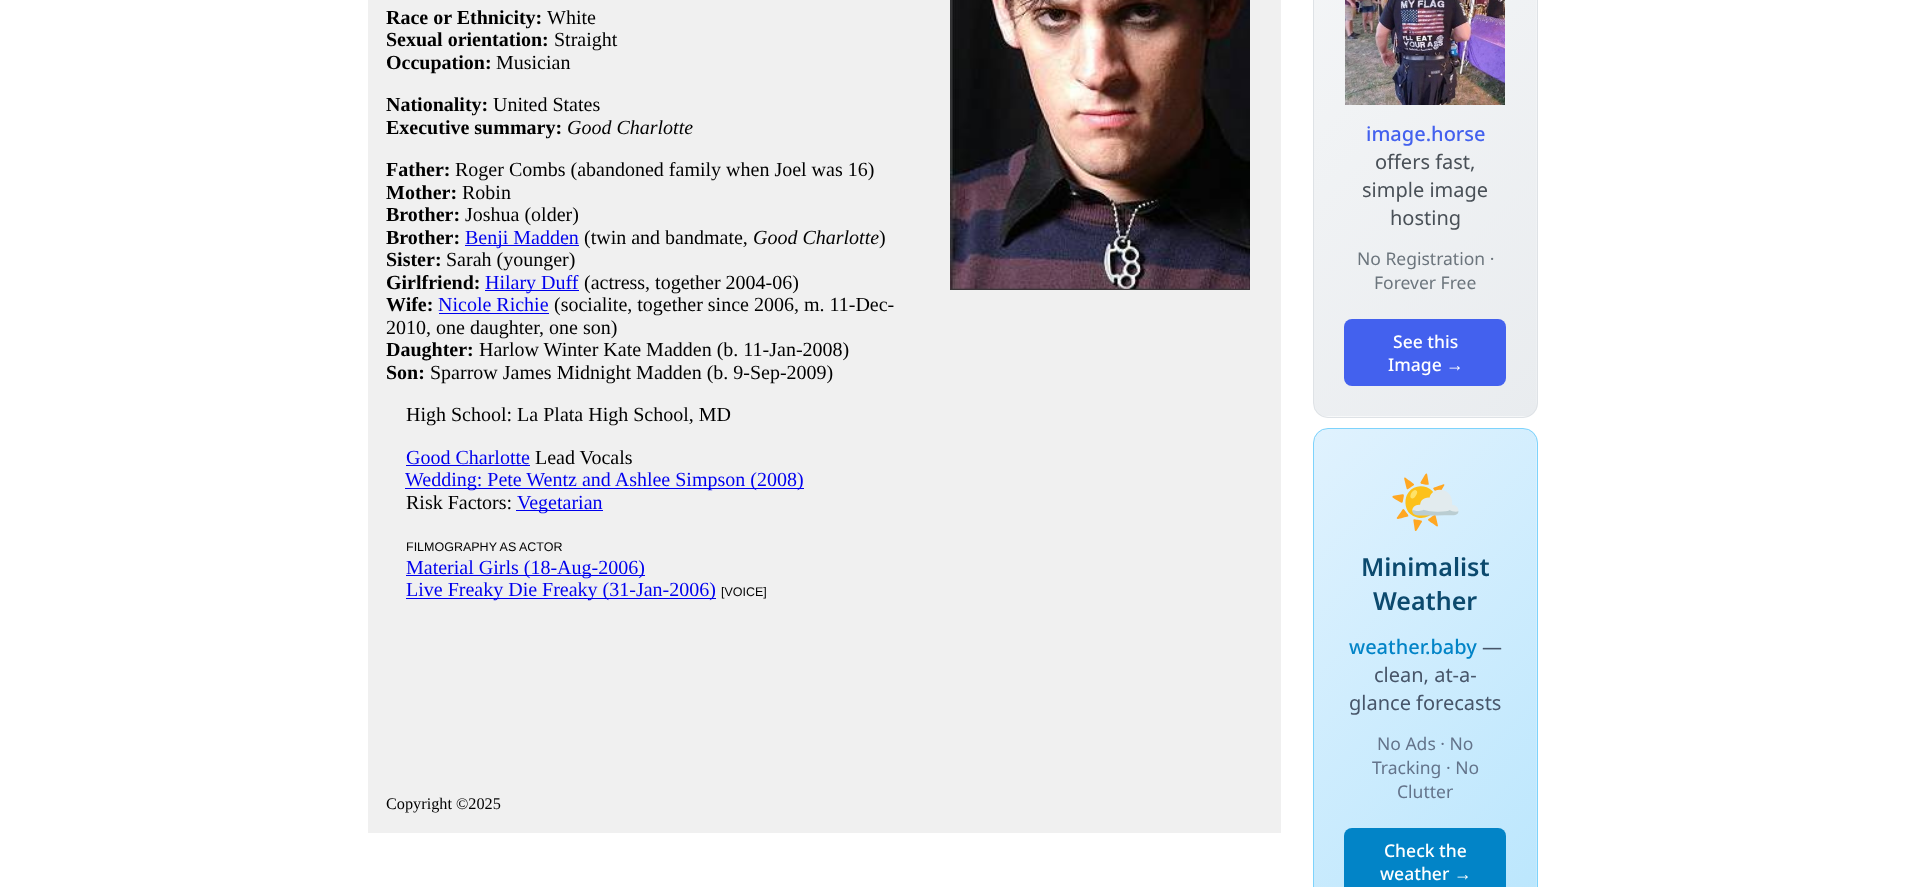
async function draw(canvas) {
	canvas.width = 1905;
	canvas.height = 887;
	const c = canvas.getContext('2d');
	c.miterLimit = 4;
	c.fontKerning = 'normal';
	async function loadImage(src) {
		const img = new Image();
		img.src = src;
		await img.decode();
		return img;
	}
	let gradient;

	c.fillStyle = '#fff';
	c.fillRect(0, 0, 1905, 887);
	c.fillStyle = '#f0f0f0';
	c.fillRect(368, 0, 913, 833);
	c.font = 'bold 20px Liberation Serif';
	c.fillStyle = '#000';
	c.fillText('Race or Ethnicity:', 386, 24);
	c.font = '20px Liberation Serif';
	c.fillText('White', 547, 24);
	c.font = 'bold 20px Liberation Serif';
	c.fillText('Sexual orientation:', 386, 46);
	c.font = '20px Liberation Serif';
	c.fillText('Straight', 554, 46);
	c.font = 'bold 20px Liberation Serif';
	c.fillText('Occupation:', 386, 69);
	c.font = '20px Liberation Serif';
	c.fillText('Musician', 496, 69);
	c.drawImage(await loadImage('img1.png'), 950, 0, 300, 290);
	c.font = 'bold 20px Liberation Serif';
	c.fillText('Nationality:', 386, 111);
	c.font = '20px Liberation Serif';
	c.fillText('United States', 493, 111);
	c.font = 'bold 20px Liberation Serif';
	c.fillText('Executive summary:', 386, 134);
	c.font = 'italic 20px Liberation Serif';
	c.fillText('Good Charlotte', 567, 134);
	c.font = 'bold 20px Liberation Serif';
	c.fillText('Father:', 386, 176);
	c.font = '20px Liberation Serif';
	c.fillText('Roger Combs (abandoned family when Joel was 16)', 455, 176);
	c.font = 'bold 20px Liberation Serif';
	c.fillText('Mother:', 386, 199);
	c.font = '20px Liberation Serif';
	c.fillText('Robin', 462, 199);
	c.font = 'bold 20px Liberation Serif';
	c.fillText('Brother:', 386, 221);
	c.font = '20px Liberation Serif';
	c.fillText('Joshua (older)', 465, 221);
	c.font = 'bold 20px Liberation Serif';
	c.fillText('Brother:', 386, 244);
	c.fillStyle = '#00e';
	c.fillRect(465, 245, 114, 1);
	c.font = '20px Liberation Serif';
	c.fillText('Benji Madden', 465, 244);
	c.fillStyle = '#000';
	c.fillText('(twin and bandmate,', 584, 244);
	c.font = 'italic 20px Liberation Serif';
	c.fillText('Good Charlotte', 753, 244);
	c.font = '20px Liberation Serif';
	c.fillText(')', 879, 244);
	c.font = 'bold 20px Liberation Serif';
	c.fillText('Sister:', 386, 266);
	c.font = '20px Liberation Serif';
	c.fillText('Sarah (younger)', 446, 266);
	c.font = 'bold 20px Liberation Serif';
	c.fillText('Girlfriend:', 386, 289);
	c.fillStyle = '#00e';
	c.fillRect(485, 290, 94, 1);
	c.font = '20px Liberation Serif';
	c.fillText('Hilary Duff', 485, 289);
	c.fillStyle = '#000';
	c.fillText('(actress, together 2004-06)', 584, 289);
	c.font = 'bold 20px Liberation Serif';
	c.fillText('Wife:', 386, 311);
	c.font = '20px Liberation Serif';
	c.fillStyle = '#00e';
	c.fillText('Nicole Richie', 438, 311);
	c.fillRect(439, 313, 110, 1);
	c.fillStyle = '#000';
	c.fillText('(socialite, together since 2006, m. 11-Dec-', 554, 311);
	c.fillText('2010, one daughter, one son)', 386, 334);
	c.font = 'bold 20px Liberation Serif';
	c.fillText('Daughter:', 386, 356);
	c.font = '20px Liberation Serif';
	c.fillText('Harlow Winter Kate Madden (b. 11-Jan-2008)', 479, 356);
	c.font = 'bold 20px Liberation Serif';
	c.fillText('Son:', 386, 379);
	c.font = '20px Liberation Serif';
	c.fillText('Sparrow James Midnight Madden (b. 9-Sep-2009)', 430, 379);
	c.fillText('High School: La Plata High School, MD', 406, 421);
	c.fillStyle = '#00e';
	c.fillText('Good Charlotte', 406, 464);
	c.fillRect(406, 465, 124, 1);
	c.fillStyle = '#000';
	c.fillText('Lead Vocals', 535, 464);
	c.fillStyle = '#00e';
	c.fillRect(405, 488, 399, 1);
	c.fillText('Wedding: Pete Wentz and Ashlee Simpson (2008)', 405, 486);
	c.fillStyle = '#000';
	c.fillText('Risk Factors:', 406, 509);
	c.fillStyle = '#00e';
	c.fillRect(516, 510, 87, 1);
	c.fillText('Vegetarian', 517, 509);
	c.font = '12.5px Liberation Sans';
	c.fillStyle = '#000';
	c.fillText('FILMOGRAPHY AS ACTOR', 406, 551);
	c.fillStyle = '#00e';
	c.fillRect(406, 575, 239, 1);
	c.font = '20px Liberation Serif';
	c.fillText('Material Girls (18-Aug-2006)', 406, 574);
	c.fillRect(406, 598, 310, 1);
	c.fillText('Live Freaky Die Freaky (31-Jan-2006)', 406, 596);
	c.font = '12.5px Liberation Sans';
	c.fillStyle = '#000';
	c.fillText('[VOICE]', 721, 596);
	c.font = '16.25px Liberation Serif';
	c.fillText('Copyright ©2025', 386, 809);
	c.save();
	c.beginPath();
	c.roundRect(1313, -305, 225, 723, 15);
	c.clip();
	gradient = c.createLinearGradient(1189, -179, 1661, 292);
	gradient.addColorStop(0, '#f8f9fa');
	gradient.addColorStop(1, '#e9ecef');
	c.fillStyle = gradient;
	c.fillRect(1314, 0, 222, 416);
	gradient = c.createLinearGradient(1412, -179, 1883, 292);
	gradient.addColorStop(0, '#f8f9fa');
	gradient.addColorStop(1, '#e9ecef');
	c.fillStyle = gradient;
	c.fillRect(1536, 0, 2, 416);
	gradient = c.createLinearGradient(1189, 541, 1661, 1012);
	gradient.addColorStop(0, '#f8f9fa');
	gradient.addColorStop(1, '#e9ecef');
	c.fillStyle = gradient;
	c.fillRect(1314, 416, 222, 2);
	c.restore();
	c.beginPath();
	c.roundRect(1313.5, -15.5, 224, 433, 14.5);
	c.strokeStyle = '#dee2e6';
	c.stroke();
	c.drawImage(await loadImage('img2.png'), 1345, 0, 160, 105);
	c.font = '500 20px Noto Sans';
	c.fillStyle = '#4361ee';
	c.fillText('image.horse', 1366, 141);
	c.font = '20px Noto Sans';
	c.fillStyle = '#495057';
	for (const [text, x, y] of [
		['offers fast,', 1375, 169],
		['simple image', 1362, 197],
		['hosting', 1390, 225],
	]) {
		c.fillText(text, x, y);
	}
	c.font = '17.5px Noto Sans';
	c.fillStyle = '#6c757d';
	c.fillText('No Registration ·', 1357, 265);
	c.fillText('Forever Free', 1374, 289);
	c.fillStyle = '#4361ee';
	c.beginPath();
	c.roundRect(1344, 319, 162, 67, 8);
	c.fill();
	c.font = '500 17.5px Noto Sans';
	c.fillStyle = '#fff';
	c.fillText('See this', 1393, 348);
	c.fillText('Image', 1388, 371);
	c.font = '17.5px Liberation Sans';
	c.fillText('→', 1446, 371);
	c.save();
	c.beginPath();
	c.roundRect(1313, 428, 225, 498, 15);
	c.clip();
	gradient = c.createLinearGradient(1245, 497, 1605, 857);
	gradient.addColorStop(0, '#e0f2fe');
	gradient.addColorStop(1, '#bae6fd');
	c.fillStyle = gradient;
	c.fillRect(1314, 429, 222, 458);
	gradient = c.createLinearGradient(1468, 497, 1827, 857);
	gradient.addColorStop(0, '#e0f2fe');
	gradient.addColorStop(1, '#bae6fd');
	c.fillStyle = gradient;
	c.fillRect(1536, 429, 2, 458);
	c.restore();
	c.beginPath();
	c.roundRect(1313.5, 428.5, 224, 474, 14.5);
	c.strokeStyle = '#7dd3fc';
	c.stroke();
	c.font = '60px Noto Color Emoji';
	c.fillStyle = '#00e';
	c.fillText('🌤️', 1388, 523);
	c.font = '600 25px Noto Sans';
	c.fillStyle = '#0c4a6e';
	c.fillText('Minimalist', 1361, 576);
	c.fillText('Weather', 1373, 610);
	c.font = '500 20px Noto Sans';
	c.fillStyle = '#0284c7';
	c.fillText('weather.baby', 1349, 654);
	c.font = '20px Noto Sans';
	c.fillStyle = '#475569';
	for (const [text, x, y] of [
		['—', 1482, 654],
		['clean, at-a-', 1374, 682],
		['glance forecasts', 1349, 710],
	]) {
		c.fillText(text, x, y);
	}
	c.font = '17.5px Noto Sans';
	c.fillStyle = '#64748b';
	for (const [text, x, y] of [
		['No Ads · No', 1377, 750],
		['Tracking · No', 1372, 774],
		['Clutter', 1397, 798],
	]) {
		c.fillText(text, x, y);
	}
	c.fillStyle = '#0284c7';
	c.beginPath();
	c.roundRect(1344, 828, 162, 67, 8);
	c.fill();
	c.font = '500 17.5px Noto Sans';
	c.fillStyle = '#fff';
	c.fillText('Check the', 1384, 857);
	c.fillText('weather', 1380, 880);
	c.font = '17.5px Liberation Sans';
	c.fillText('→', 1454, 880);
}

draw(document.querySelector('canvas'));
